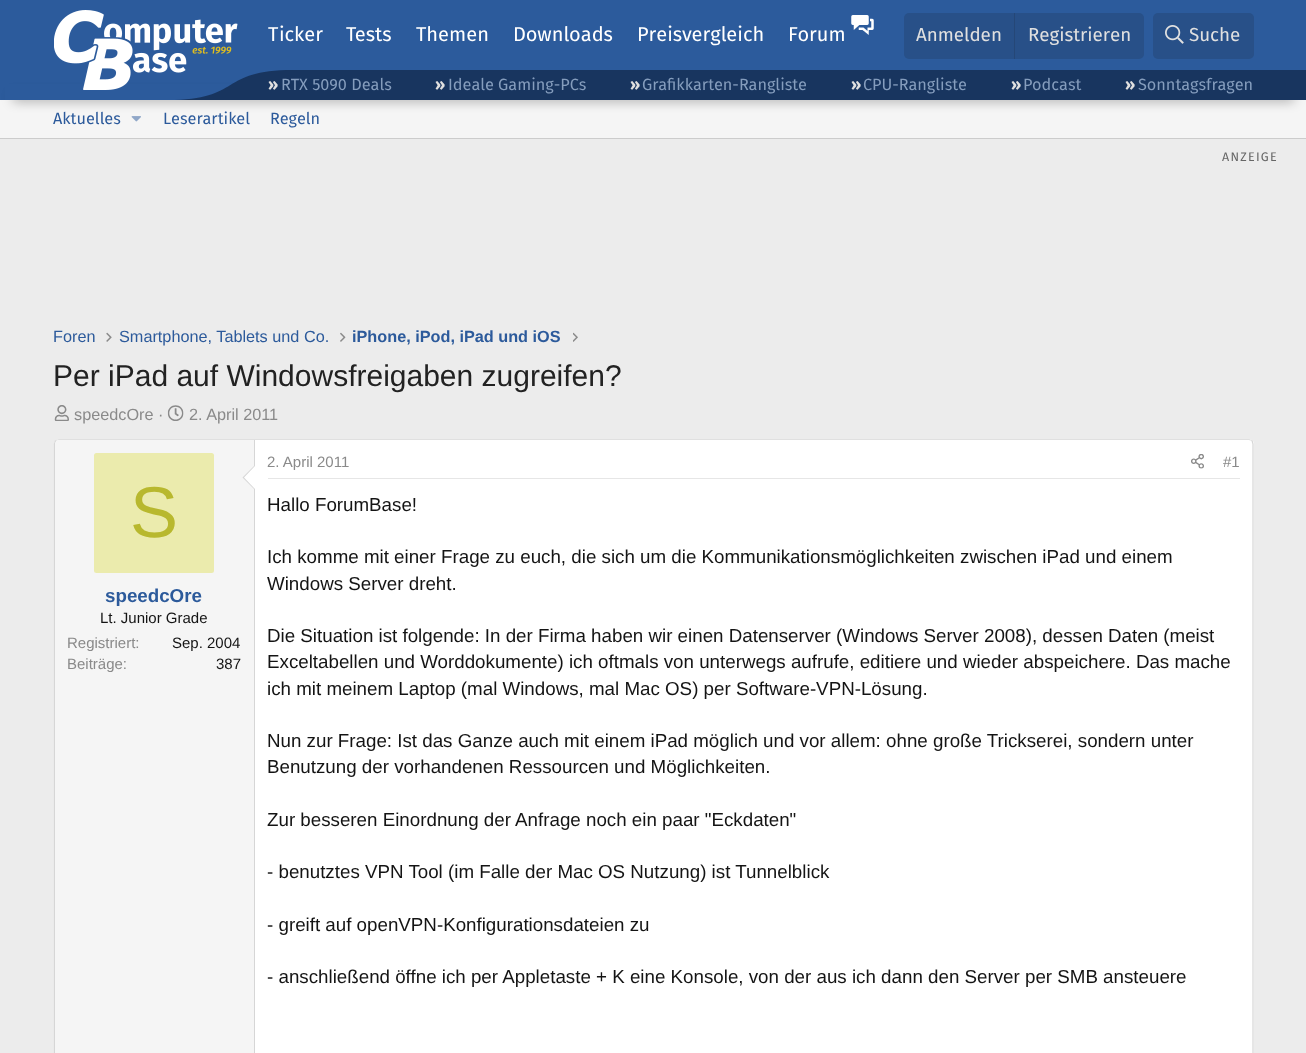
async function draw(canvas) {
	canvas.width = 1306;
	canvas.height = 1053;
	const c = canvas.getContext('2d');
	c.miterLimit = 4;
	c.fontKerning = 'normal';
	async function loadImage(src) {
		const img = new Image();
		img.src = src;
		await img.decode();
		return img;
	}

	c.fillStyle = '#2c5b9c';
	c.fillRect(0, 0, 1306, 1053);
	c.fillStyle = '#f5f5f5';
	c.fillRect(0, 100, 1306, 38);
	c.drawImage(await loadImage('img4.png'), 131, 116, 10, 6);
	c.fillStyle = '#00000080';
	c.filter = 'blur(6px)';
	c.beginPath();
	c.rect(13, 95, 1281, 5);
	c.fill();
	c.filter = 'none';
	c.fillStyle = '#2c5b9c';
	c.fillRect(5, 84, 286, 16);
	c.fillStyle = '#18355f';
	c.beginPath();
	c.moveTo(168, 100);
	c.lineTo(1253, 100);
	c.lineTo(1253, 70);
	c.lineTo(293, 70);
	c.bezierCurveTo(218, 70, 243, 100, 168, 100);
	c.closePath();
	c.fill();
	c.drawImage(await loadImage('img1.png'), 54, 10, 184, 80);
	c.font = '20px Fira Sans';
	c.fillStyle = '#fff';
	for (const [text, x, y] of [
		['Ticker', 268, 41],
		['Tests', 346, 41],
		['Themen', 416, 41],
		['Downloads', 513, 41],
		['Preisvergleich', 637, 41],
	]) {
		c.fillText(text, x, y);
	}
	c.drawImage(await loadImage('img2.png'), 851, 15, 23, 20);
	c.fillText('Forum', 788, 41);
	c.fillStyle = '#285088';
	c.beginPath();
	c.roundRect(904, 13, 240, 46, 5);
	c.fill();
	c.font = '18.75px Fira Sans';
	c.fillStyle = '#e0e0e0';
	c.fillText('Anmelden', 916, 41);
	c.fillStyle = '#254777';
	c.fillRect(1014, 13, 1, 46);
	c.fillStyle = '#e0e0e0';
	c.fillText('Registrieren', 1028, 41);
	c.fillStyle = '#285088';
	c.beginPath();
	c.roundRect(1153, 13, 101, 46, 5);
	c.fill();
	c.drawImage(await loadImage('img3.png'), 1165, 25, 19, 19);
	c.fillStyle = '#e0e0e0';
	c.fillText('Suche', 1189, 41);
	c.fillStyle = '#18355f';
	c.fillRect(1253, 70, 53, 30);
	c.font = 'bold 16.25px Fira Sans';
	c.fillStyle = '#e0e0e0';
	c.fillText('»', 268, 90);
	c.font = '16.25px Fira Sans';
	c.fillStyle = '#859dbd';
	c.fillText('RTX 5090 Deals', 281, 90);
	c.font = 'bold 16.25px Fira Sans';
	c.fillStyle = '#e0e0e0';
	c.fillText('»', 435, 90);
	c.font = '16.25px Fira Sans';
	c.fillStyle = '#859dbd';
	c.fillText('Ideale Gaming-PCs', 448, 90);
	c.font = 'bold 16.25px Fira Sans';
	c.fillStyle = '#e0e0e0';
	c.fillText('»', 630, 90);
	c.font = '16.25px Fira Sans';
	c.fillStyle = '#859dbd';
	c.fillText('Grafikkarten-Rangliste', 642, 90);
	c.font = 'bold 16.25px Fira Sans';
	c.fillStyle = '#e0e0e0';
	c.fillText('»', 851, 90);
	c.font = '16.25px Fira Sans';
	c.fillStyle = '#859dbd';
	c.fillText('CPU-Rangliste', 863, 90);
	c.font = 'bold 16.25px Fira Sans';
	c.fillStyle = '#e0e0e0';
	c.fillText('»', 1011, 90);
	c.font = '16.25px Fira Sans';
	c.fillStyle = '#859dbd';
	c.fillText('Podcast', 1023, 90);
	c.font = 'bold 16.25px Fira Sans';
	c.fillStyle = '#e0e0e0';
	c.fillText('»', 1125, 90);
	c.font = '16.25px Fira Sans';
	c.fillStyle = '#859dbd';
	c.fillText('Sonntagsfragen', 1138, 90);
	c.fillStyle = '#ccc';
	c.fillRect(0, 138, 1306, 1);
	c.fillStyle = '#2c5a9b';
	for (const [text, x, y] of [
		['Aktuelles', 53, 124],
		['Leserartikel', 163, 124],
		['Regeln', 270, 124],
	]) {
		c.fillText(text, x, y);
	}
	c.fillStyle = '#ececec';
	c.fillRect(0, 139, 1306, 914);
	c.letterSpacing = '1.25px';
	c.font = '12.5px Fira Sans';
	c.fillStyle = '#666';
	c.fillText('ANZEIGE', 1222, 161);
	c.letterSpacing = '0px';
	c.font = '16.25px Liberation Sans';
	c.fillStyle = '#2c5a9b';
	c.fillText('Foren', 53, 342);
	c.drawImage(await loadImage('img5.png'), 106, 332, 6, 10);
	c.fillText('Smartphone, Tablets und Co.', 119, 342);
	c.drawImage(await loadImage('img6.png'), 340, 332, 6, 10);
	c.font = 'bold 16.25px Liberation Sans';
	c.fillText('iPhone, iPod, iPad und iOS', 352, 342);
	c.drawImage(await loadImage('img7.png'), 573, 332, 5, 10);
	c.font = '30px Liberation Sans';
	c.fillStyle = '#222';
	c.fillText('Per iPad auf Windowsfreigaben zugreifen?', 53, 386);
	c.drawImage(await loadImage('img8.png'), 54, 405, 15, 16);
	c.font = '16.25px Liberation Sans';
	c.fillStyle = '#8a8a8a';
	c.fillText('speedcOre ·', 74, 420);
	c.drawImage(await loadImage('img9.png'), 167, 405, 17, 16);
	c.fillText('2. April 2011', 189, 420);
	c.fillStyle = '#fff';
	c.beginPath();
	c.roundRect(54, 439, 1200, 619, 5);
	c.fill();
	c.beginPath();
	c.moveTo(55.5, 440.5);
	c.lineTo(59, 439.5);
	c.lineTo(1249, 439.5);
	c.lineTo(1252, 440.5);
	c.strokeStyle = '#e0e0e0';
	c.lineWidth = 1.2;
	c.stroke();
	c.beginPath();
	c.moveTo(1252, 440.5);
	c.lineTo(1253, 444);
	c.lineTo(1253, 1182.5);
	c.lineTo(1252, 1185.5);
	c.strokeStyle = '#d6d6d6';
	c.stroke();
	c.beginPath();
	c.moveTo(55.5, 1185.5);
	c.lineTo(54.5, 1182.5);
	c.lineTo(54.5, 444);
	c.lineTo(55.5, 440.5);
	c.stroke();
	c.fillStyle = '#f5f5f5';
	c.beginPath();
	c.moveTo(59, 440);
	c.lineTo(255, 440);
	c.lineTo(255, 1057);
	c.lineTo(59, 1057);
	c.bezierCurveTo(57, 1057, 55, 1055, 55, 1053);
	c.lineTo(55, 444);
	c.bezierCurveTo(55, 442, 57, 440, 59, 440);
	c.closePath();
	c.fill();
	c.fillStyle = '#d6d6d6';
	c.fillRect(254, 440, 1, 613);
	c.beginPath();
	c.moveTo(255, 465);
	c.lineTo(255, 490);
	c.lineTo(242.5, 477.5);
	c.closePath();
	c.fill();
	c.fillStyle = '#fff';
	c.beginPath();
	c.moveTo(255, 466);
	c.lineTo(255, 489);
	c.lineTo(244, 477.5);
	c.closePath();
	c.fill();
	c.fillStyle = '#ebebad';
	c.beginPath();
	c.roundRect(94, 453, 120, 120, 2.5);
	c.fill();
	c.font = '72px Liberation Sans';
	c.fillStyle = '#b8b82e';
	c.fillText('S', 130, 537);
	c.font = 'bold 18.75px Liberation Sans';
	c.fillStyle = '#2c5a9b';
	c.fillText('speedcOre', 105, 602);
	c.font = '15px Liberation Sans';
	c.fillStyle = '#141414';
	c.fillText('Lt. Junior Grade', 100, 623);
	c.fillStyle = '#8a8a8a';
	c.fillText('Registriert:', 67, 648);
	c.fillStyle = '#141414';
	c.fillText('Sep. 2004', 172, 648);
	c.fillStyle = '#8a8a8a';
	c.fillText('Beiträge:', 67, 669);
	c.fillStyle = '#141414';
	c.fillText('387', 216, 669);
	c.fillStyle = '#e6e6e6';
	c.fillRect(268, 478, 972, 1);
	c.fillStyle = '#8a8a8a';
	c.fillText('2. April 2011', 267, 467);
	c.drawImage(await loadImage('img10.png'), 1191, 454, 13, 15);
	c.fillText('#1', 1223, 467);
	c.font = '18.75px Liberation Sans';
	c.fillStyle = '#141414';
	for (const [text, x, y] of [
		['Hallo ForumBase!', 267, 511],
		['Ich komme mit einer Frage zu euch, die sich um die Kommunikationsmöglichkeiten zwischen iPad und einem', 267, 563],
		['Windows Server dreht.', 267, 590],
		['Die Situation ist folgende: In der Firma haben wir einen Datenserver (Windows Server 2008), dessen Daten (meist', 267, 642],
		['Exceltabellen und Worddokumente) ich oftmals von unterwegs aufrufe, editiere und wieder abspeichere. Das mache', 267, 668],
		['ich mit meinem Laptop (mal Windows, mal Mac OS) per Software-VPN-Lösung.', 267, 695],
		['Nun zur Frage: Ist das Ganze auch mit einem iPad möglich und vor allem: ohne große Trickserei, sondern unter', 267, 747],
		['Benutzung der vorhandenen Ressourcen und Möglichkeiten.', 267, 773],
		['Zur besseren Einordnung der Anfrage noch ein paar "Eckdaten"', 267, 826],
		['- benutztes VPN Tool (im Falle der Mac OS Nutzung) ist Tunnelblick', 267, 878],
		['- greift auf openVPN-Konfigurationsdateien zu', 267, 931],
		['- anschließend öffne ich per Appletaste + K eine Konsole, von der aus ich dann den Server per SMB ansteuere', 267, 983],
	]) {
		c.fillText(text, x, y);
	}
}

draw(document.querySelector('canvas'));
